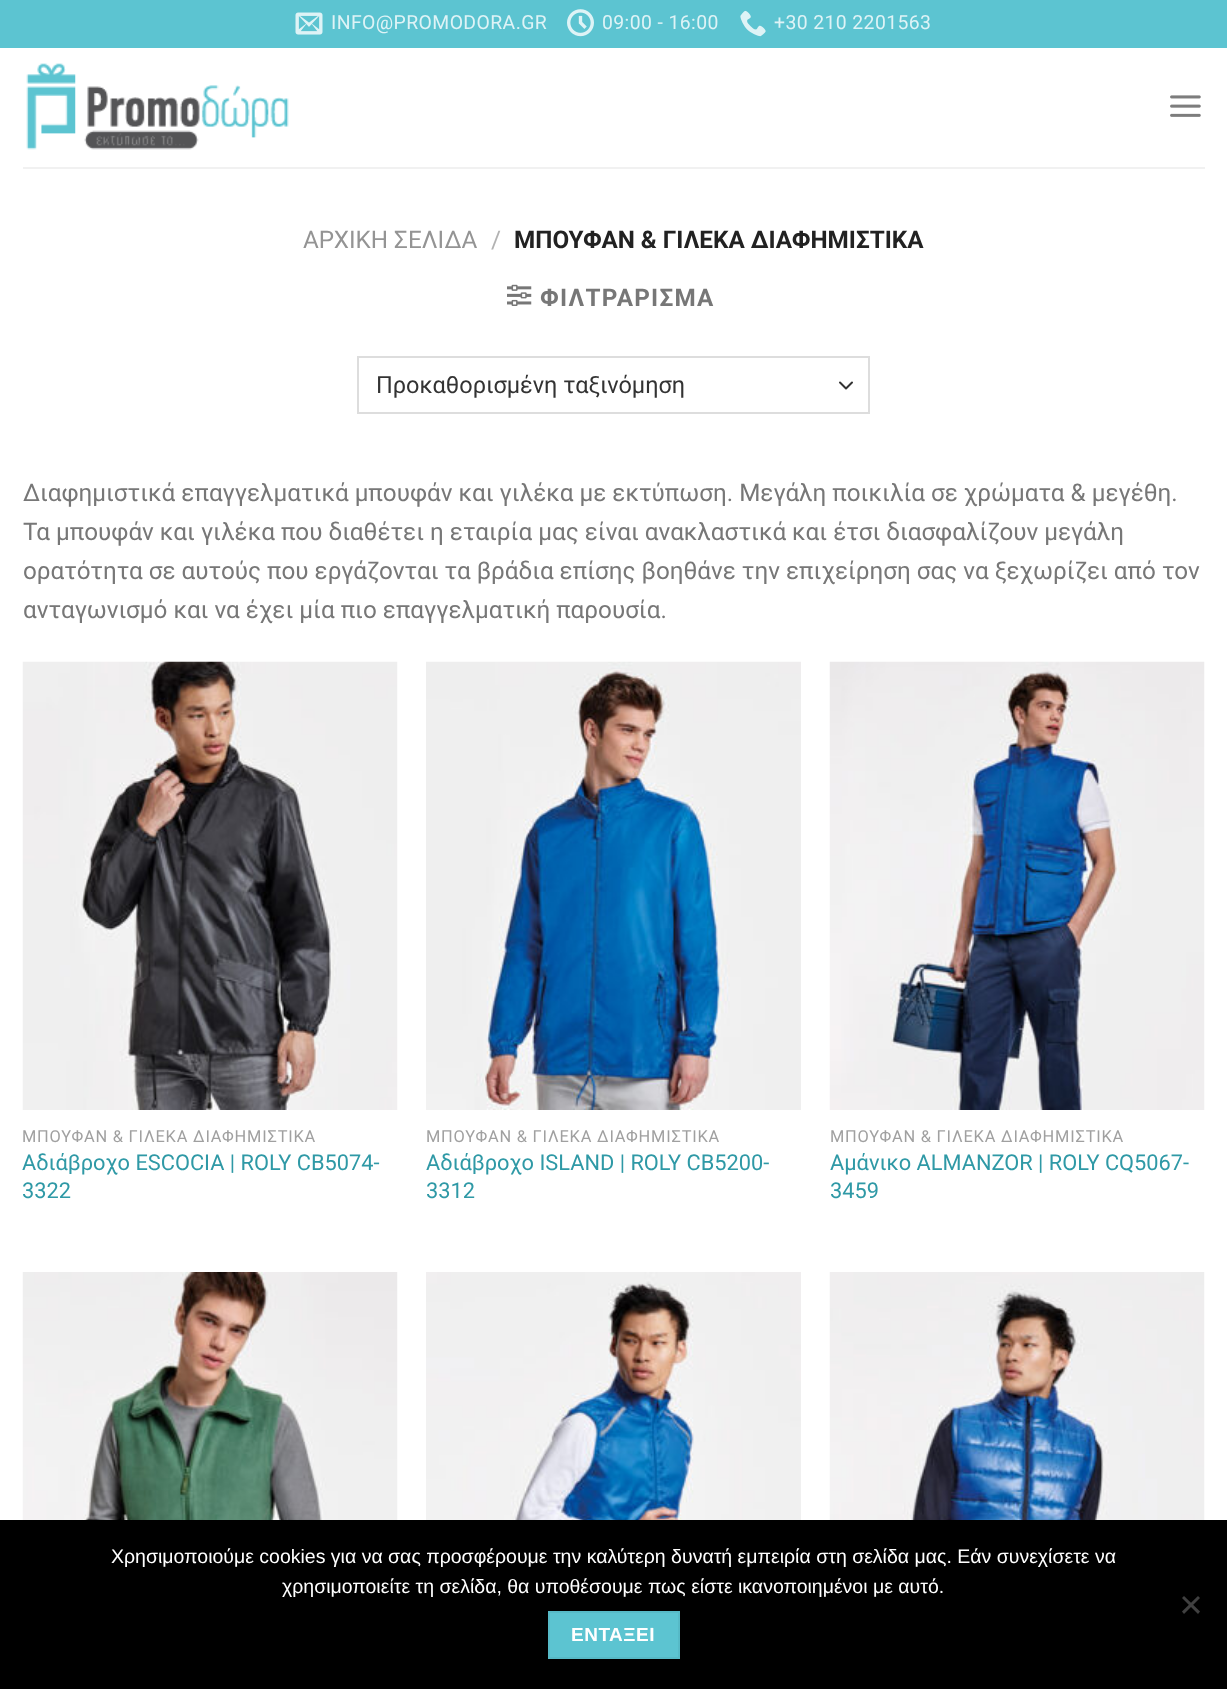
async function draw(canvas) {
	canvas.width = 1227;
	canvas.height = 1689;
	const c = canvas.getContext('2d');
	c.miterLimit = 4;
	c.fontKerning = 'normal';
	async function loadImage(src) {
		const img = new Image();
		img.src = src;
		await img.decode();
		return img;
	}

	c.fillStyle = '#fff';
	c.fillRect(0, 0, 1227, 1689);
	c.fillStyle = '#5cc4d1';
	c.fillRect(0, 0, 1227, 48);
	c.drawImage(await loadImage('img1.png'), 295, 12, 28, 23);
	c.letterSpacing = '0.4px';
	c.font = '19.4px Roboto';
	c.fillStyle = '#def3f6';
	c.fillText('INFO@PROMODORA.GR', 331, 29);
	c.drawImage(await loadImage('img2.png'), 567, 9, 27, 28);
	c.fillText('09:00 - 16:00', 602, 29);
	c.drawImage(await loadImage('img3.png'), 740, 10, 26, 27);
	c.fillText('+30 210 2201563', 774, 29);
	c.drawImage(await loadImage('img4.png'), 26, 63, 263, 87);
	c.drawImage(await loadImage('img5.png'), 1170, 95, 31, 22);
	c.fillStyle = '#f1f1f1';
	c.fillRect(23, 167, 1182, 2);
	c.letterSpacing = '0px';
	c.font = '24.25px Roboto';
	c.fillStyle = '#949494';
	c.fillText('ΑΡΧΙΚΗ ΣΕΛΙΔΑ', 303, 248);
	c.fillStyle = '#b2b2b2';
	c.fillText('/', 491, 248);
	c.font = 'bold 24.25px Roboto';
	c.fillStyle = '#222';
	c.fillText('ΜΠΟΥΦΑΝ & ΓΙΛΕΚΑ ΔΙΑΦΗΜΙΣΤΙΚΑ', 514, 248);
	c.drawImage(await loadImage('img6.png'), 507, 284, 25, 22);
	c.letterSpacing = '1.25px';
	c.fillStyle = '#777';
	c.fillText('ΦΙΛΤΡΑΡΙΣΜΑ', 540, 306);
	c.beginPath();
	c.moveTo(840, 382.5);
	c.lineTo(846, 388.5);
	c.lineTo(852, 382.5);
	c.strokeStyle = '#333';
	c.lineWidth = 2;
	c.lineCap = 'round';
	c.lineJoin = 'round';
	c.stroke();
	c.strokeStyle = '#ddd';
	c.lineJoin = 'miter';
	c.strokeRect(358, 357, 511, 56);
	c.letterSpacing = '0px';
	c.font = '23.5px Roboto';
	c.fillStyle = '#333';
	c.fillText('Προκαθορισμένη ταξινόμηση', 376, 393);
	c.font = '24.25px Roboto';
	c.fillStyle = '#777';
	for (const [text, x, y] of [
		['Διαφημιστικά επαγγελματικά μπουφάν και γιλέκα με εκτύπωση. Μεγάλη ποικιλία σε χρώματα & μεγέθη.', 23, 501],
		['Τα μπουφάν και γιλέκα που διαθέτει η εταιρία μας είναι ανακλαστικά και έτσι διασφαλίζουν μεγάλη', 23, 540],
		['ορατότητα σε αυτούς που εργάζονται τα βράδια επίσης βοηθάνε την επιχείρηση σας να ξεχωρίζει από τον', 23, 579],
		['ανταγωνισμό και να έχει μία πιο επαγγελματική παρουσία.', 23, 618],
	]) {
		c.fillText(text, x, y);
	}
	c.drawImage(await loadImage('img7.png'), 22, 661, 376, 449);
	c.letterSpacing = '0.8px';
	c.font = '16.4px Roboto';
	c.fillStyle = '#a0a0a0';
	c.fillText('ΜΠΟΥΦΑΝ & ΓΙΛΕΚΑ ΔΙΑΦΗΜΙΣΤΙΚΑ', 22, 1142);
	c.letterSpacing = '0px';
	c.font = '21.8px Roboto';
	c.fillStyle = '#2f99a6';
	c.fillText('Αδιάβροχο ESCOCIA | ROLY CB5074-', 22, 1170);
	c.fillText('3322', 22, 1198);
	c.drawImage(await loadImage('img8.png'), 426, 661, 375, 449);
	c.letterSpacing = '0.8px';
	c.font = '16.4px Roboto';
	c.fillStyle = '#a0a0a0';
	c.fillText('ΜΠΟΥΦΑΝ & ΓΙΛΕΚΑ ΔΙΑΦΗΜΙΣΤΙΚΑ', 426, 1142);
	c.letterSpacing = '0px';
	c.font = '21.8px Roboto';
	c.fillStyle = '#2f99a6';
	c.fillText('Αδιάβροχο ISLAND | ROLY CB5200-', 426, 1170);
	c.fillText('3312', 426, 1198);
	c.drawImage(await loadImage('img9.png'), 829, 661, 376, 449);
	c.letterSpacing = '0.8px';
	c.font = '16.4px Roboto';
	c.fillStyle = '#a0a0a0';
	c.fillText('ΜΠΟΥΦΑΝ & ΓΙΛΕΚΑ ΔΙΑΦΗΜΙΣΤΙΚΑ', 830, 1142);
	c.letterSpacing = '0px';
	c.font = '21.8px Roboto';
	c.fillStyle = '#2f99a6';
	c.fillText('Αμάνικο ALMANZOR | ROLY CQ5067-', 830, 1170);
	c.fillText('3459', 830, 1198);
	c.drawImage(await loadImage('img10.png'), 22, 1272, 376, 248);
	c.drawImage(await loadImage('img11.png'), 426, 1272, 375, 248);
	c.drawImage(await loadImage('img12.png'), 829, 1272, 376, 248);
	c.fillStyle = '#000';
	c.fillRect(0, 1520, 1227, 169);
	c.font = '19.5px Liberation Sans';
	c.fillStyle = '#fff';
	c.fillText('Χρησιμοποιούμε cookies για να σας προσφέρουμε την καλύτερη δυνατή εμπειρία στη σελίδα μας. Εάν συνεχίσετε να', 111, 1563);
	c.fillText('χρησιμοποιείτε τη σελίδα, θα υποθέσουμε πως είστε ικανοποιημένοι με αυτό.', 282, 1593);
	c.fillStyle = '#404040';
	c.beginPath();
	c.moveTo(1198, 1596);
	c.lineTo(1200, 1598);
	c.lineTo(1184, 1614);
	c.lineTo(1182, 1611.5);
	c.closePath();
	c.fill();
	c.beginPath();
	c.moveTo(1182, 1598);
	c.lineTo(1184, 1596);
	c.lineTo(1200, 1611.5);
	c.lineTo(1198, 1614);
	c.closePath();
	c.fill();
	c.fillStyle = '#5cc4d1';
	c.beginPath();
	c.rect(549, 1612, 130, 46);
	c.fill();
	c.strokeStyle = '#57bac7';
	c.stroke();
	c.letterSpacing = '0.5px';
	c.font = 'bold 19px Liberation Sans';
	c.fillStyle = '#fff';
	c.fillText('ΕΝΤΑΞΕΙ', 571, 1641);
}

draw(document.querySelector('canvas'));
